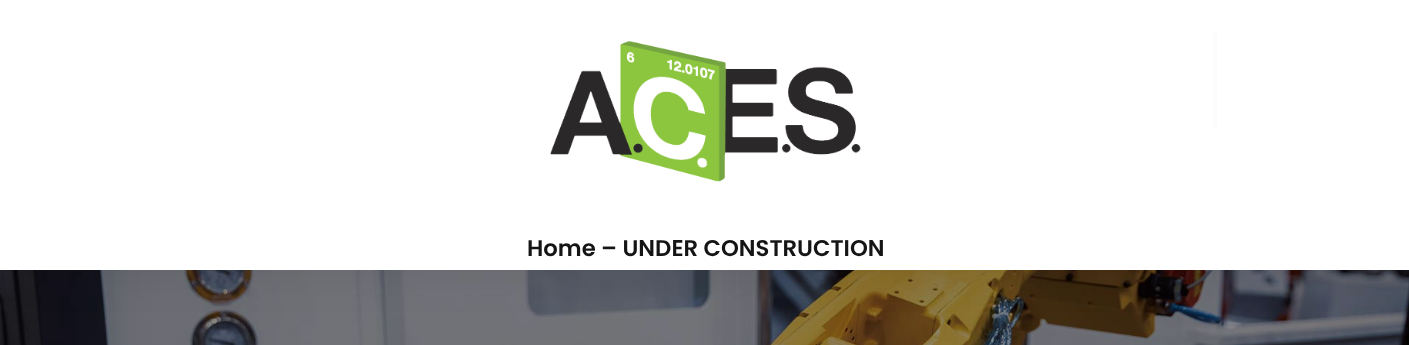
async function draw(canvas) {
	canvas.width = 1409;
	canvas.height = 345;
	const c = canvas.getContext('2d');
	c.miterLimit = 4;
	c.fontKerning = 'normal';
	async function loadImage(src) {
		const img = new Image();
		img.src = src;
		await img.decode();
		return img;
	}

	c.fillStyle = '#fff';
	c.fillRect(0, 0, 1409, 345);
	c.drawImage(await loadImage('img2.png'), 0, 270, 1409, 75);
	c.fillStyle = '#0000001a';
	c.filter = 'blur(22px)';
	c.beginPath();
	c.rect(0, 0, 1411, 270);
	c.fill();
	c.filter = 'none';
	c.fillStyle = '#fff';
	c.fillRect(0, 0, 1409, 270);
	c.drawImage(await loadImage('img1.png'), 550, 40, 311, 142);
	c.fillStyle = '#fcfcfc';
	c.fillRect(1213, 32, 4, 96);
	c.font = '600 22.75px Poppins';
	c.fillStyle = '#151515';
	c.fillText('Home – UNDER CONSTRUCTION', 527, 256);
}

draw(document.querySelector('canvas'));
